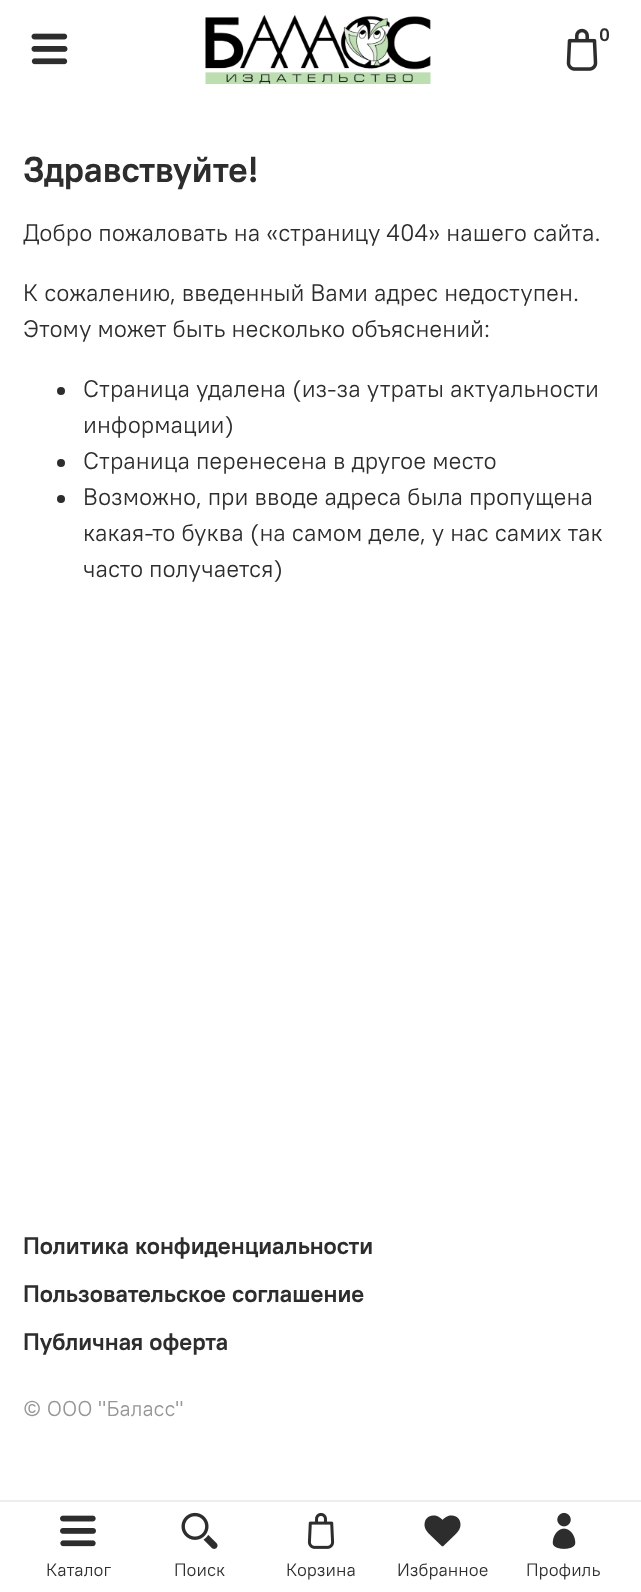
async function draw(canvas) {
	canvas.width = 641;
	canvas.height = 1592;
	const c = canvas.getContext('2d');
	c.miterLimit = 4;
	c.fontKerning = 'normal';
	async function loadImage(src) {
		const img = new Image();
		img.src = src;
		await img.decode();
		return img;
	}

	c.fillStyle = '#fff';
	c.fillRect(0, 0, 641, 1592);
	c.drawImage(await loadImage('img1.png'), 31, 33, 37, 32);
	c.drawImage(await loadImage('img2.png'), 205, 15, 226, 69);
	c.drawImage(await loadImage('img3.png'), 566, 28, 32, 43);
	c.font = 'bold 18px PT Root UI';
	c.fillStyle = '#2d2d2d';
	c.fillText('0', 599, 41);
	c.font = 'bold 36px PT Root UI';
	c.fillText('Здравствуйте!', 23, 182);
	c.font = '24px PT Root UI';
	for (const [text, x, y] of [
		['Добро пожаловать на «страницу 404» нашего сайта.', 23, 241],
		['К сожалению, введенный Вами адрес недоступен.', 23, 301],
		['Этому может быть несколько объяснений:', 23, 337],
	]) {
		c.fillText(text, x, y);
	}
	c.beginPath();
	c.arc(61, 391, 4, 0, 2 * Math.PI);
	c.fill();
	c.fillText('Страница удалена (из-за утраты актуальности', 83, 397);
	c.fillText('информации)', 83, 433);
	c.beginPath();
	c.arc(61, 463, 4, 0, 2 * Math.PI);
	c.fill();
	c.fillText('Страница перенесена в другое место', 83, 469);
	c.beginPath();
	c.arc(61, 499, 4, 0, 2 * Math.PI);
	c.fill();
	for (const [text, x, y] of [
		['Возможно, при вводе адреса была пропущена', 83, 505],
		['какая-то буква (на самом деле, у нас самих так', 83, 541],
		['часто получается)', 83, 577],
	]) {
		c.fillText(text, x, y);
	}
	c.font = 'bold 24px PT Root UI';
	for (const [text, x, y] of [
		['Политика конфиденциальности', 23, 1254],
		['Пользовательское соглашение', 23, 1302],
		['Публичная оферта', 23, 1350],
	]) {
		c.fillText(text, x, y);
	}
	c.font = '21.5px PT Root UI';
	c.fillStyle = '#969696';
	c.fillText('© ООО "Баласс"', 23, 1416);
	c.fillStyle = '#ededed';
	c.fillRect(0, 1500, 641, 2);
	c.drawImage(await loadImage('img4.png'), 60, 1515, 36, 32);
	c.font = '18px PT Root UI';
	c.fillStyle = '#2d2d2d';
	c.fillText('Каталог', 46, 1576);
	c.drawImage(await loadImage('img5.png'), 181, 1512, 37, 37);
	c.fillText('Поиск', 174, 1576);
	c.drawImage(await loadImage('img6.png'), 307, 1512, 28, 37);
	c.fillText('Корзина', 286, 1576);
	c.drawImage(await loadImage('img7.png'), 424, 1515, 37, 32);
	c.fillText('Избранное', 397, 1576);
	c.drawImage(await loadImage('img8.png'), 552, 1512, 24, 37);
	c.fillText('Профиль', 526, 1576);
}

draw(document.querySelector('canvas'));
